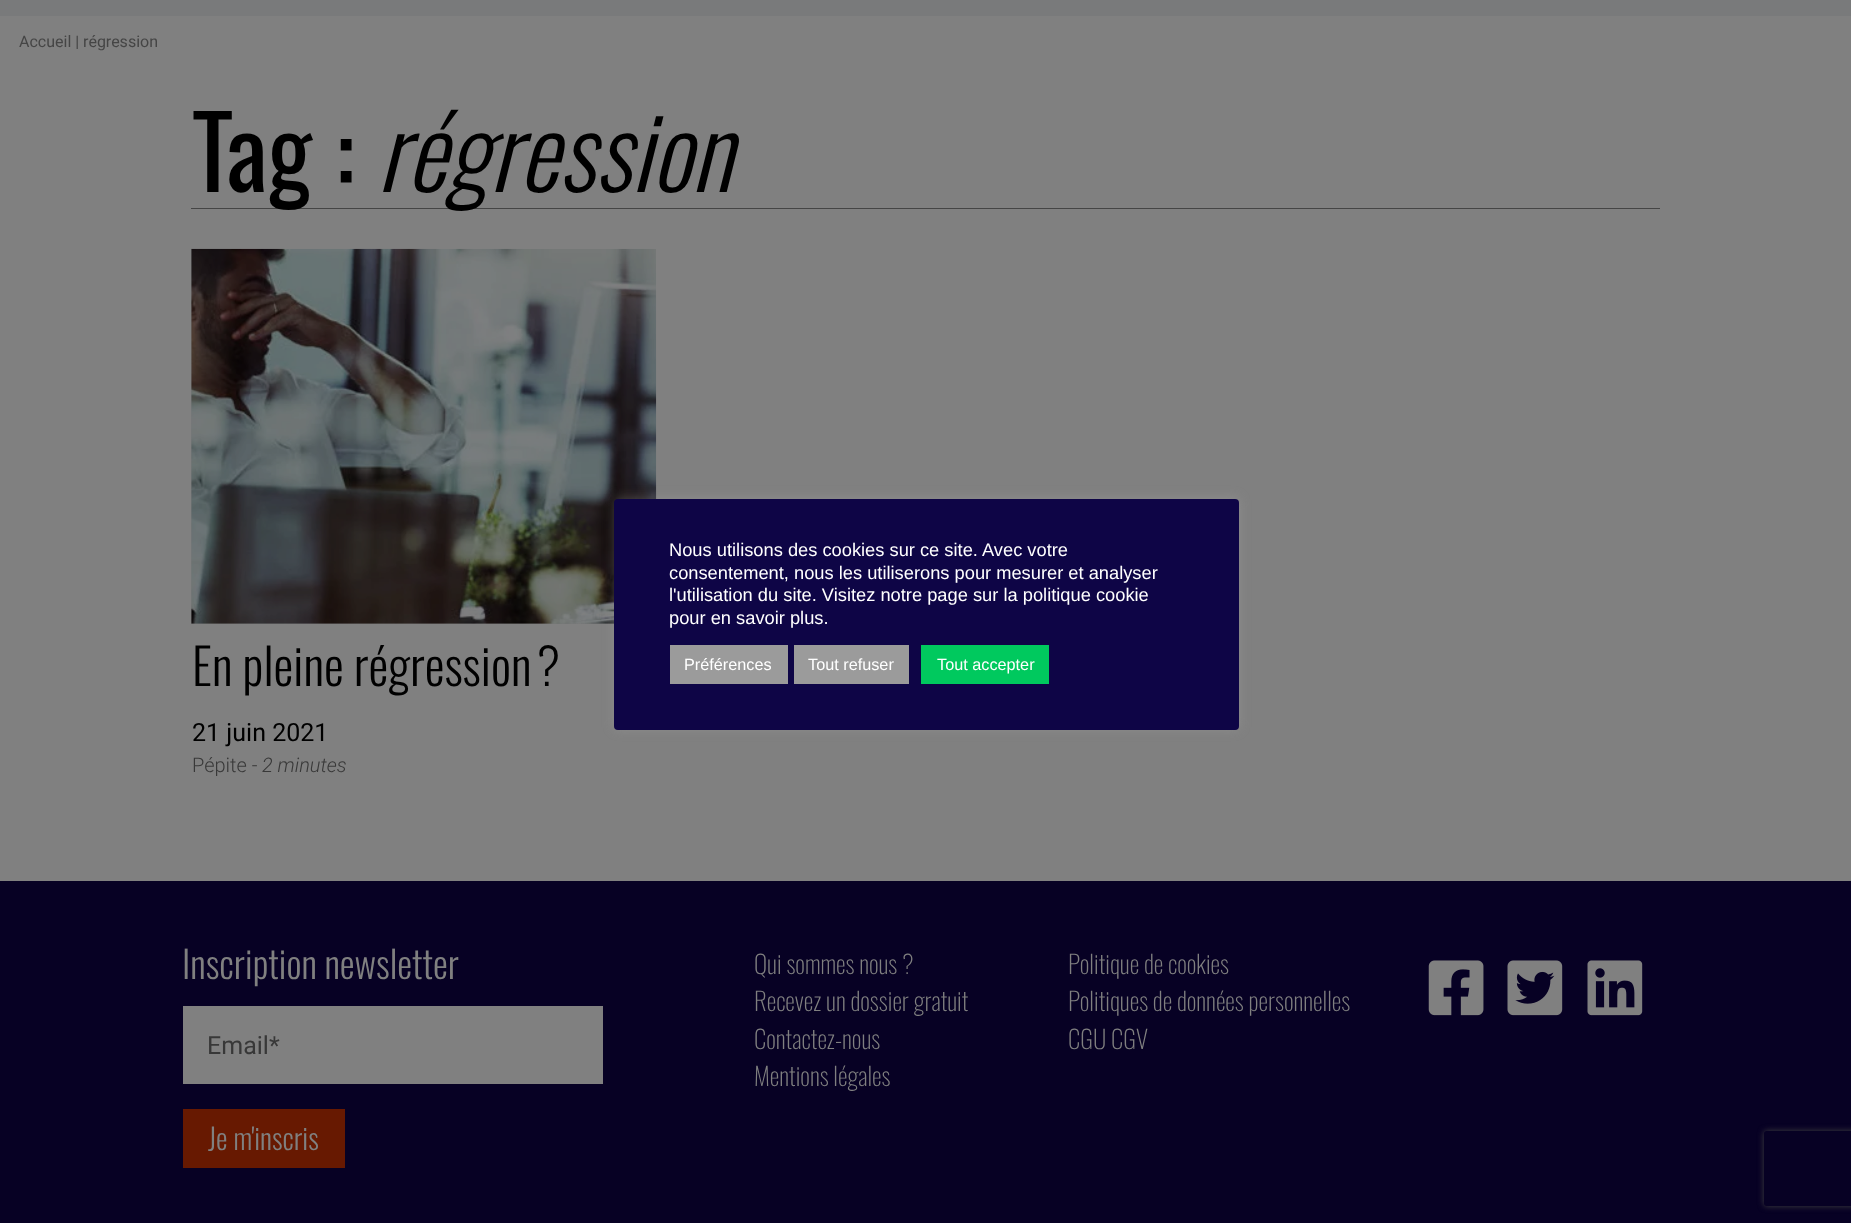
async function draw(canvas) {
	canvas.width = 1851;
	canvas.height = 1223;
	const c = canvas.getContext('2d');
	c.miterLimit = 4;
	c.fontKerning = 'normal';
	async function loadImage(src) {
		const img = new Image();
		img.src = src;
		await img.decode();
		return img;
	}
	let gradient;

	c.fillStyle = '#808080';
	c.fillRect(0, 0, 1851, 1223);
	c.fillStyle = '#797a7b';
	c.fillRect(0, 0, 1851, 16);
	c.font = '16px Roboto';
	c.fillStyle = '#454545';
	c.fillText('Accueil | régression', 19, 47);
	c.fillRect(191, 208, 1469, 1);
	c.font = '100px Oswald';
	c.fillStyle = '#000';
	c.fillText('Tag :', 192, 192);
	c.font = 'italic 300 100px Oswald';
	c.fillText('régression', 377, 192);
	gradient = c.createLinearGradient(214, 226, 634, 646);
	gradient.addColorStop(0, '#797a7b');
	gradient.addColorStop(1, '#747474');
	c.fillStyle = gradient;
	c.fillRect(191, 249, 423, 375);
	c.drawImage(await loadImage('img1.png'), 191, 248, 466, 376);
	c.font = '300 50px Oswald';
	c.fillStyle = '#000';
	c.fillText('En pleine régression ?', 192, 686);
	c.font = '25px Roboto';
	c.fillText('21 juin 2021', 192, 741);
	c.font = '300 20px Roboto';
	c.fillStyle = '#383838';
	c.fillText('Pépite -', 192, 772);
	c.font = 'italic 300 20px Roboto';
	c.fillText('2 minutes', 262, 772);
	c.fillStyle = '#acabab4d';
	c.filter = 'blur(6px)';
	c.beginPath();
	c.roundRect(614, 498, 625, 231, 4);
	c.fill();
	c.filter = 'none';
	c.fillStyle = '#0e0546';
	c.beginPath();
	c.roundRect(614, 499, 625, 231, 4);
	c.fill();
	c.font = '18.3px Liberation Sans';
	c.fillStyle = '#fff';
	for (const [text, x, y] of [
		['Nous utilisons des cookies sur ce site. Avec votre', 669, 556],
		['consentement, nous les utiliserons pour mesurer et analyser', 669, 579],
		['l\'utilisation du site. Visitez notre page sur la politique cookie', 669, 601],
		['pour en savoir plus.', 669, 624],
	]) {
		c.fillText(text, x, y);
	}
	c.fillStyle = '#9b9b9b';
	c.fillRect(670, 645, 118, 39);
	c.font = '16.25px Liberation Sans';
	c.fillStyle = '#fff';
	c.fillText('Préférences', 684, 670);
	c.fillStyle = '#9b9b9b';
	c.fillRect(794, 645, 115, 39);
	c.fillStyle = '#fff';
	c.fillText('Tout refuser', 808, 670);
	c.fillStyle = '#00c95e';
	c.fillRect(921, 645, 128, 39);
	c.fillStyle = '#fff';
	c.fillText('Tout accepter', 937, 670);
	c.fillStyle = '#070124';
	c.fillRect(0, 881, 1851, 342);
	c.font = '300 37.5px Oswald';
	c.fillStyle = '#808080';
	c.fillText('Inscription newsletter', 182, 979);
	c.fillRect(183, 1006, 420, 78);
	c.font = '25px Roboto';
	c.fillStyle = '#383838';
	c.fillText('Email*', 207, 1054);
	c.fillStyle = '#671901';
	c.fillRect(183, 1109, 162, 59);
	c.font = '300 29px Oswald';
	c.fillStyle = '#808080';
	c.fillText('Je m\'inscris', 208, 1150);
	c.font = '200 25px Oswald';
	for (const [text, x, y] of [
		['Qui sommes nous ?', 754, 974],
		['Politique de cookies', 1068, 974],
		['Recevez un dossier gratuit', 754, 1011],
		['Politiques de données personnelles', 1068, 1011],
		['Contactez-nous', 754, 1049],
		['CGU CGV', 1068, 1049],
		['Mentions légales', 754, 1086],
	]) {
		c.fillText(text, x, y);
	}
	c.drawImage(await loadImage('img2.png'), 1428, 960, 56, 56);
	c.drawImage(await loadImage('img3.png'), 1507, 960, 56, 56);
	c.drawImage(await loadImage('img4.png'), 1587, 960, 56, 56);
	c.save();
	c.beginPath();
	c.moveTo(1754, 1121);
	c.lineTo(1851, 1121);
	c.lineTo(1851, 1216);
	c.lineTo(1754, 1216);
	c.closePath();
	c.moveTo(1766.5, 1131);
	c.lineTo(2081.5, 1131);
	c.bezierCurveTo(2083, 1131, 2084, 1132, 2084, 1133.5);
	c.lineTo(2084, 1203.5);
	c.bezierCurveTo(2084, 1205, 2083, 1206, 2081.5, 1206);
	c.lineTo(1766.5, 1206);
	c.bezierCurveTo(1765, 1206, 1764, 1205, 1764, 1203.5);
	c.lineTo(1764, 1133.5);
	c.bezierCurveTo(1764, 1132, 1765, 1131, 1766.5, 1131);
	c.closePath();
	c.clip('evenodd');
	c.fillStyle = '#404040';
	c.filter = 'blur(3px)';
	c.beginPath();
	c.roundRect(1764, 1131, 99, 75, 2.5);
	c.fill();
	c.filter = 'none';
	c.restore();
}

draw(document.querySelector('canvas'));
